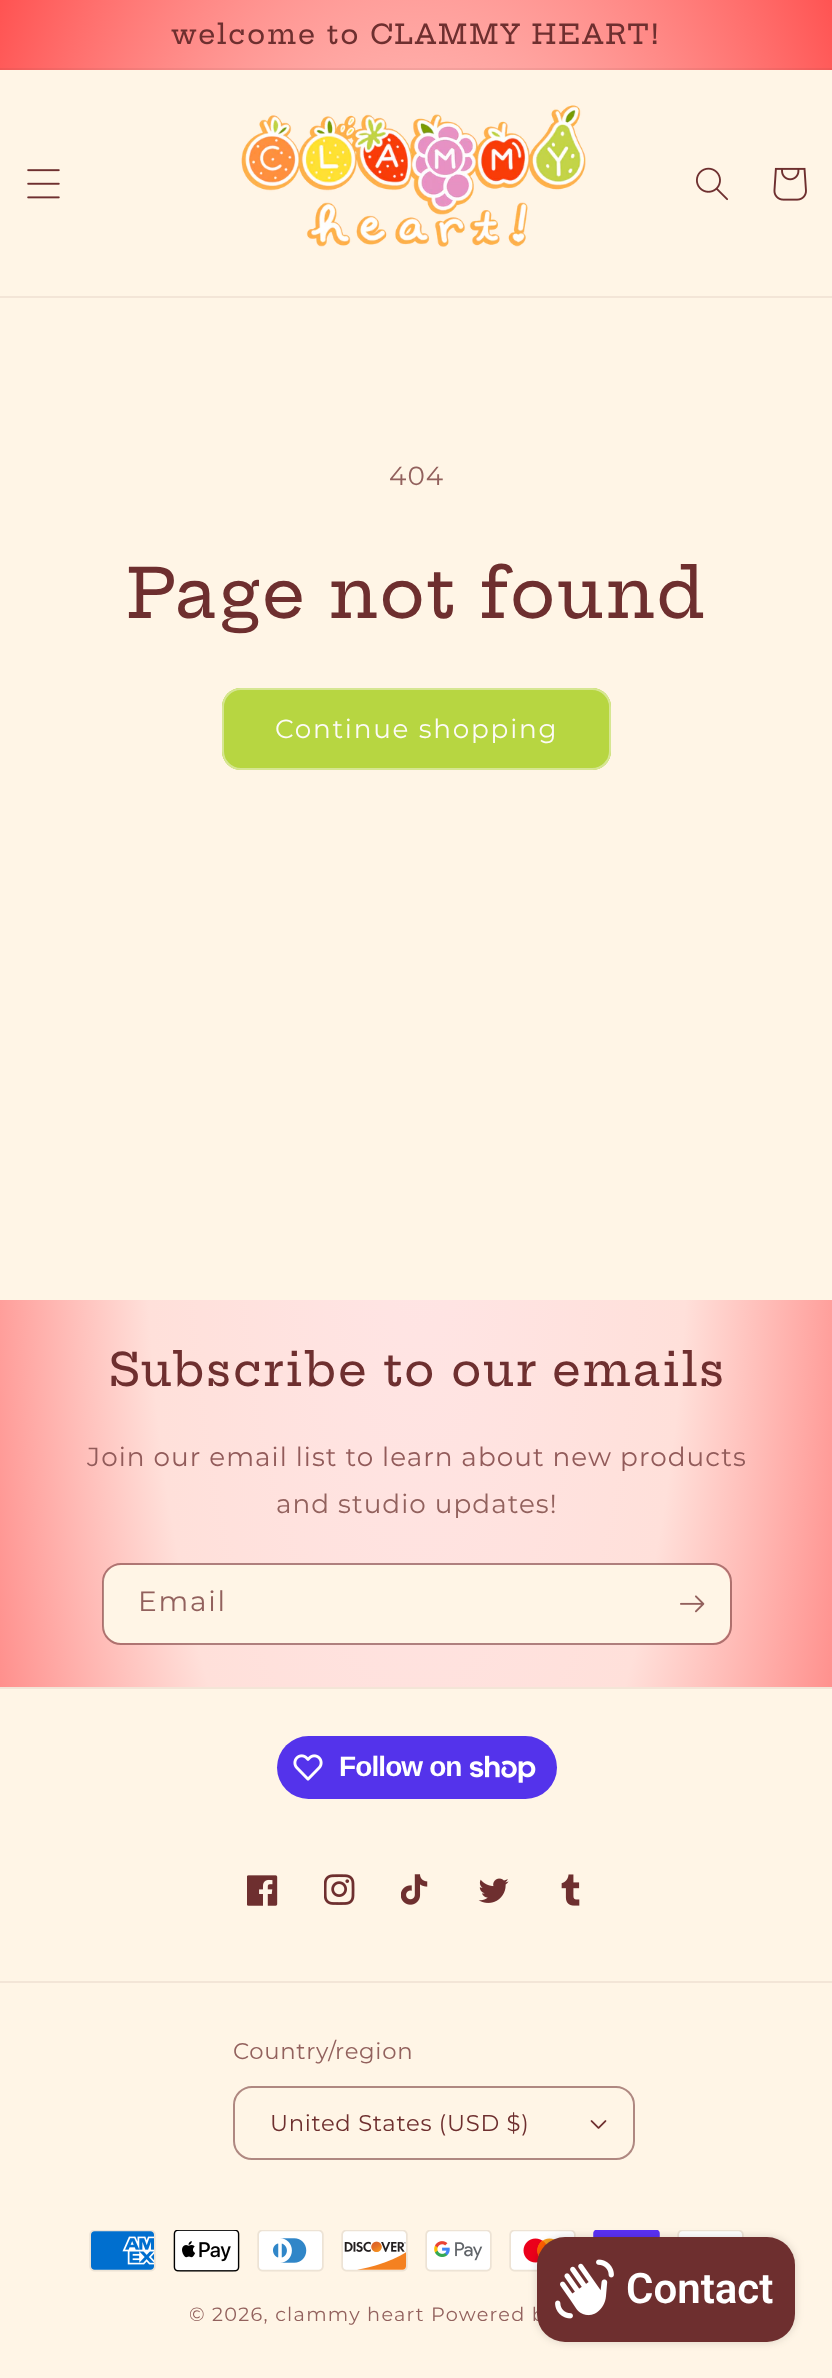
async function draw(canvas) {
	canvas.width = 832;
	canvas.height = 2378;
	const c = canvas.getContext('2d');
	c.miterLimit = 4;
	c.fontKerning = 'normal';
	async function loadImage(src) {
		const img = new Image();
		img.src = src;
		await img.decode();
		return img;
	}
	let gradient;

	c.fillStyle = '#fff5e6';
	c.fillRect(0, 0, 832, 2378);
	gradient = c.createRadialGradient(417, 416.36, 0, 417, 416.36, 589);
	gradient.addColorStop(0, '#ffe5e5');
	gradient.addColorStop(0.46, '#ffe0da');
	gradient.addColorStop(1, '#ff5352');
	c.fillStyle = gradient;
	c.beginPath();
	c.rect(0, 0, 832, 68);
	c.save();
	c.clip();
	c.scale(1, 1682 / 589);
	c.fillRect(0, 0, 832, 833);
	c.restore();
	gradient = c.createRadialGradient(417, 416.36, 0, 417, 416.36, 589);
	gradient.addColorStop(0, '#f3d6d6');
	gradient.addColorStop(0.46, '#f3d2cc');
	gradient.addColorStop(1, '#f3504f');
	c.fillStyle = gradient;
	c.beginPath();
	c.rect(0, 68, 832, 2);
	c.save();
	c.clip();
	c.scale(1, 1682 / 589);
	c.fillRect(0, 0, 832, 833);
	c.restore();
	c.letterSpacing = '1.75px';
	c.font = '500 27.25px Hepta Slab';
	c.fillStyle = '#6e2f2f';
	c.fillText('welcome to CLAMMY HEART!', 171, 44);
	c.fillStyle = '#f3e5d7';
	c.fillRect(0, 296, 832, 2);
	c.drawImage(await loadImage('img1.png'), 27, 169, 33, 30);
	c.drawImage(await loadImage('img2.png'), 241, 105, 345, 142);
	c.drawImage(await loadImage('img3.png'), 696, 167, 32, 34);
	c.drawImage(await loadImage('img4.png'), 773, 167, 34, 34);
	c.letterSpacing = '1.05px';
	c.font = '26.25px Montserrat';
	c.fillStyle = '#92615d';
	c.fillText('404', 389, 485);
	c.letterSpacing = '1.4px';
	c.font = '500 68.25px Hepta Slab';
	c.fillStyle = '#6e2f2f';
	c.fillText('Page not found', 127, 618);
	c.fillStyle = '#b7d641';
	c.beginPath();
	c.roundRect(222, 688, 389, 82, 19);
	c.fill();
	c.beginPath();
	c.roundRect(223, 689, 387, 80, 18);
	c.strokeStyle = '#b7d641';
	c.lineWidth = 2;
	c.stroke();
	c.beginPath();
	c.roundRect(223, 689, 387, 80, 18);
	c.strokeStyle = '#fdfbf773';
	c.stroke();
	c.letterSpacing = '1.75px';
	c.font = '26.25px Montserrat';
	c.fillStyle = '#fdfbf7';
	c.fillText('Continue shopping', 275, 738);
	gradient = c.createRadialGradient(417, 416.36, 0, 417, 416.36, 589);
	gradient.addColorStop(0, '#ffe5e5');
	gradient.addColorStop(0.46, '#ffe0da');
	gradient.addColorStop(1, '#ff5352');
	c.fillStyle = gradient;
	c.beginPath();
	c.rect(0, 1300, 832, 387);
	c.save();
	c.clip();
	c.scale(1, 1682 / 589);
	c.fillRect(0, 0, 832, 833);
	c.restore();
	c.letterSpacing = '1.4px';
	c.font = '500 45.5px Hepta Slab';
	c.fillStyle = '#6e2f2f';
	c.fillText('Subscribe to our emails', 109, 1386);
	c.letterSpacing = '1.05px';
	c.font = '26.25px Montserrat';
	c.fillStyle = '#925b5a';
	c.fillText('Join our email list to learn about new products', 87, 1466);
	c.fillStyle = '#92615d';
	c.fillText('and studio updates!', 276, 1513);
	c.fillStyle = '#fff5e6';
	c.beginPath();
	c.roundRect(103, 1565, 627, 78, 18);
	c.fill();
	c.beginPath();
	c.roundRect(103, 1564, 628, 80, 18);
	c.strokeStyle = '#6e2f2f8c';
	c.stroke();
	c.letterSpacing = '1.75px';
	c.font = '28px Montserrat';
	c.fillStyle = '#92615d';
	c.fillText('Email', 138, 1611);
	c.drawImage(await loadImage('img5.png'), 680, 1595, 25, 18);
	c.fillStyle = '#f3e5d7';
	c.fillRect(0, 1687, 832, 2);
	c.fillStyle = '#5433eb';
	c.beginPath();
	c.roundRect(277, 1736, 280, 63, 31.5);
	c.fill();
	c.drawImage(await loadImage('img6.png'), 293, 1754, 30, 27);
	c.letterSpacing = '-0.9px';
	c.font = 'bold 28px Liberation Sans';
	c.fillStyle = '#fff';
	c.fillText('Follow on', 339, 1776);
	c.drawImage(await loadImage('img7.png'), 469, 1755, 67, 28);
	c.drawImage(await loadImage('img8.png'), 247, 1875, 31, 31);
	c.drawImage(await loadImage('img9.png'), 324, 1874, 31, 31);
	c.drawImage(await loadImage('img10.png'), 401, 1874, 27, 31);
	c.drawImage(await loadImage('img11.png'), 478, 1878, 31, 25);
	c.drawImage(await loadImage('img12.png'), 561, 1874, 19, 32);
	c.fillStyle = '#f3e5d7';
	c.fillRect(0, 1981, 832, 2);
	c.letterSpacing = '0.7px';
	c.font = '22.75px Montserrat';
	c.fillStyle = '#92615d';
	c.fillText('Country/region', 233, 2059);
	c.drawImage(await loadImage('img13.png'), 590, 2120, 17, 9);
	c.beginPath();
	c.roundRect(234, 2087, 400, 72, 18);
	c.strokeStyle = '#af8881';
	c.stroke();
	c.fillStyle = '#6e2f2f';
	c.fillText('United States (USD $)', 270, 2131);
	c.drawImage(await loadImage('img14.png'), 89, 2230, 67, 42);
	c.drawImage(await loadImage('img15.png'), 173, 2230, 67, 42);
	c.drawImage(await loadImage('img16.png'), 257, 2230, 67, 42);
	c.drawImage(await loadImage('img17.png'), 341, 2230, 67, 42);
	c.drawImage(await loadImage('img18.png'), 425, 2230, 67, 42);
	c.drawImage(await loadImage('img19.png'), 509, 2230, 67, 42);
	c.drawImage(await loadImage('img20.png'), 593, 2230, 67, 7);
	c.drawImage(await loadImage('img21.png'), 677, 2230, 67, 7);
	c.letterSpacing = '1.25px';
	c.font = '19.25px Montserrat';
	c.fillStyle = '#92615d';
	c.fillText('© 2026, clammy heart', 189, 2321);
	c.fillText('Powered b', 431, 2321);
	c.fillStyle = '#00000026';
	c.filter = 'blur(4.5px)';
	c.beginPath();
	c.roundRect(537, 2237, 258, 105, 28);
	c.fill();
	c.filter = 'none';
	c.fillStyle = '#6e2f2f';
	c.beginPath();
	c.roundRect(537, 2237, 258, 105, 28);
	c.fill();
	c.drawImage(await loadImage('img22.png'), 555, 2259, 59, 60);
	c.letterSpacing = '0px';
	c.font = '600 42px Roboto';
	c.fillStyle = '#fff';
	c.fillText('Contact', 626, 2303);
}

draw(document.querySelector('canvas'));
